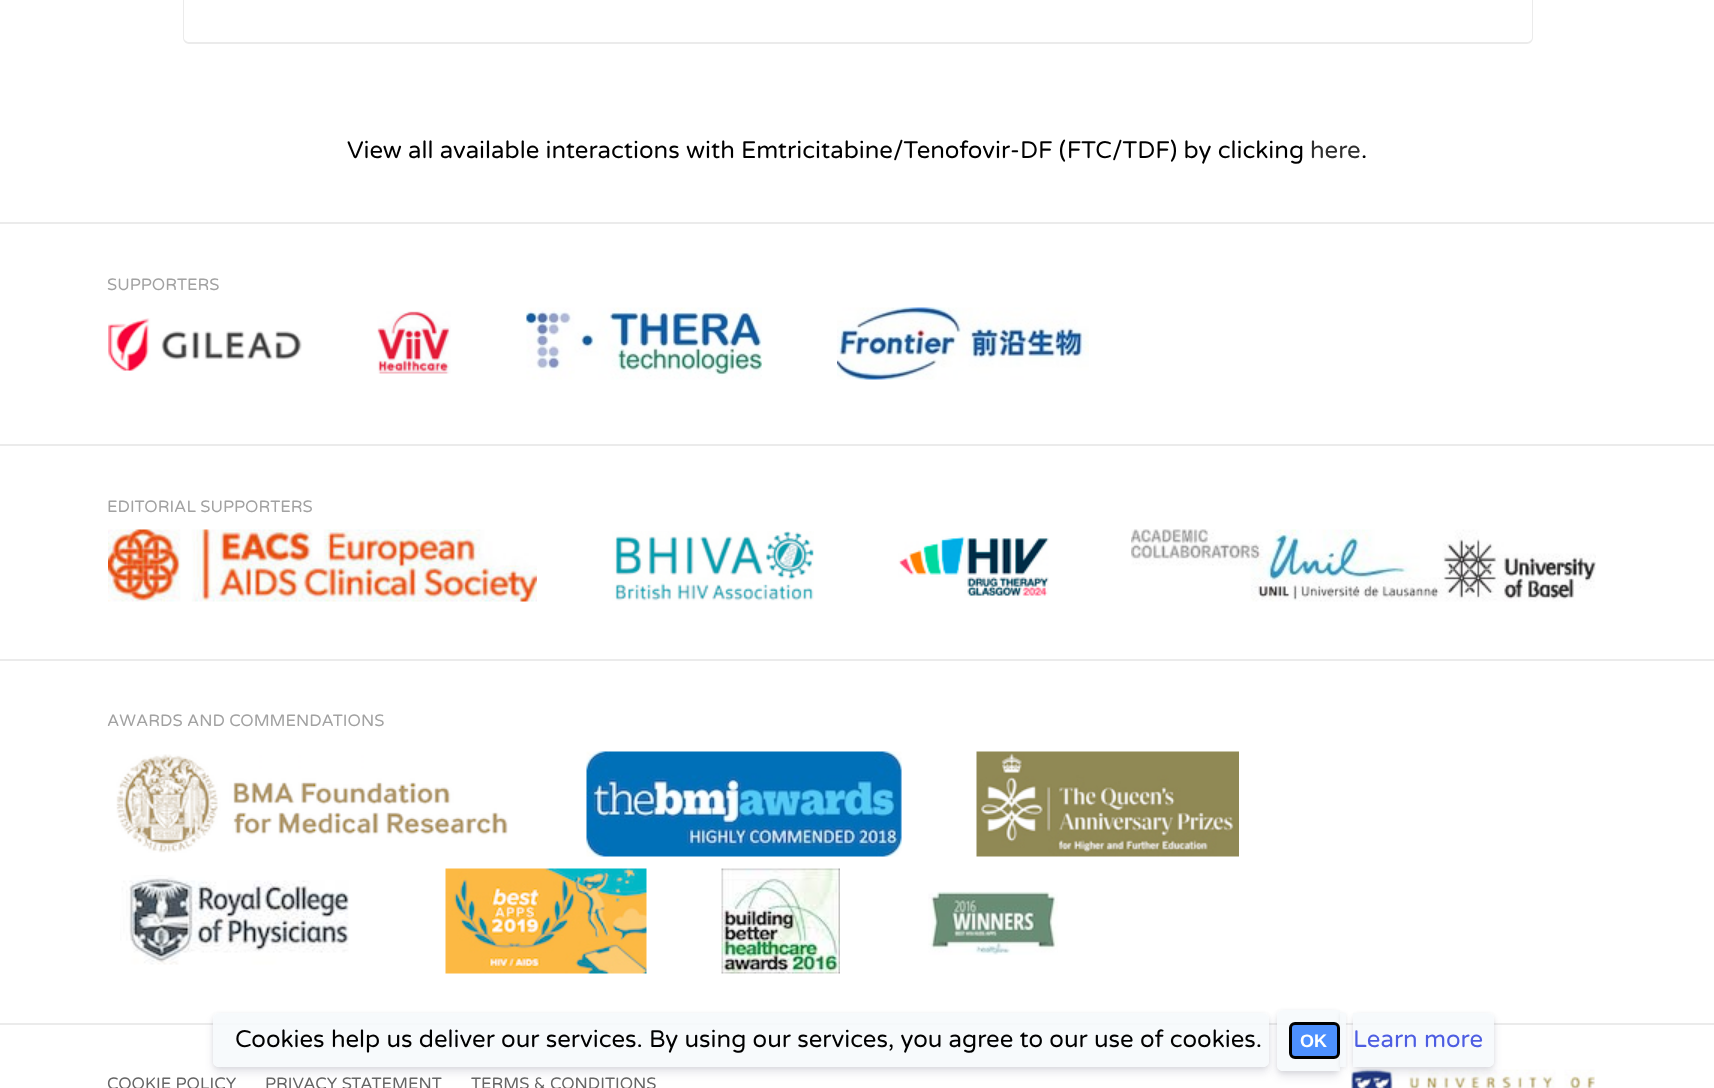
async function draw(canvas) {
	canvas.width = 1714;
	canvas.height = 1088;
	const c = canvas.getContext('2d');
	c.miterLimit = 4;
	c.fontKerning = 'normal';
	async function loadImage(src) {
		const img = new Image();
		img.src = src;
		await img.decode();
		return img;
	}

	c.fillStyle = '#fff';
	c.fillRect(0, 0, 1714, 1088);
	c.fillStyle = '#ebebeb';
	c.beginPath();
	c.moveTo(183, -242);
	c.lineTo(1533, -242);
	c.lineTo(1533, 38);
	c.bezierCurveTo(1533, 41, 1530, 44, 1527, 44);
	c.lineTo(189, 44);
	c.bezierCurveTo(186, 44, 183, 41, 183, 38);
	c.closePath();
	c.moveTo(184, -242);
	c.lineTo(1532, -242);
	c.lineTo(1532, 38);
	c.bezierCurveTo(1532, 40, 1529, 42, 1527, 42);
	c.lineTo(189, 42);
	c.bezierCurveTo(187, 42, 184, 40, 184, 38);
	c.closePath();
	c.fill('evenodd');
	c.font = '24px Varela Round';
	c.fillStyle = '#000';
	c.fillText('View all available interactions with Emtricitabine/Tenofovir-DF (FTC/TDF) by clicking', 347, 158);
	c.fillStyle = '#2e2e2e';
	c.fillText('here', 1310, 158);
	c.fillStyle = '#000';
	c.fillText('.', 1361, 158);
	c.fillStyle = '#ebebeb';
	c.fillRect(0, 222, 1714, 2);
	c.font = '16.5px Varela Round';
	c.fillStyle = '#a2a2a2';
	c.fillText('SUPPORTERS', 107, 290);
	c.drawImage(await loadImage('img1.png'), 108, 318, 194, 53);
	c.drawImage(await loadImage('img2.png'), 377, 311, 74, 63);
	c.drawImage(await loadImage('img3.png'), 526, 307, 236, 73);
	c.drawImage(await loadImage('img4.png'), 837, 307, 252, 73);
	c.fillStyle = '#ebebeb';
	c.fillRect(0, 444, 1714, 2);
	c.fillStyle = '#a2a2a2';
	c.fillText('EDITORIAL SUPPORTERS', 107, 512);
	c.drawImage(await loadImage('img5.png'), 108, 529, 429, 73);
	c.drawImage(await loadImage('img6.png'), 612, 531, 202, 70);
	c.drawImage(await loadImage('img7.png'), 898, 536, 151, 62);
	c.drawImage(await loadImage('img8.png'), 1131, 529, 465, 73);
	c.fillStyle = '#ebebeb';
	c.fillRect(0, 659, 1714, 2);
	c.fillStyle = '#a2a2a2';
	c.fillText('AWARDS AND COMMENDATIONS', 107, 726);
	c.drawImage(await loadImage('img9.png'), 116, 754, 392, 99);
	c.drawImage(await loadImage('img10.png'), 586, 751, 316, 106);
	c.drawImage(await loadImage('img11.png'), 976, 751, 263, 106);
	c.drawImage(await loadImage('img12.png'), 120, 875, 229, 90);
	c.drawImage(await loadImage('img13.png'), 445, 868, 202, 106);
	c.drawImage(await loadImage('img14.png'), 721, 868, 119, 106);
	c.drawImage(await loadImage('img15.png'), 928, 891, 130, 64);
	c.fillStyle = '#ebebeb';
	c.fillRect(0, 1023, 1714, 2);
	c.save();
	c.beginPath();
	c.moveTo(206, 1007);
	c.lineTo(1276, 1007);
	c.lineTo(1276, 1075);
	c.lineTo(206, 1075);
	c.closePath();
	c.moveTo(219, 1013);
	c.lineTo(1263, 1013);
	c.bezierCurveTo(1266.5, 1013, 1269, 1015.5, 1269, 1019);
	c.lineTo(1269, 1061);
	c.bezierCurveTo(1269, 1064.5, 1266.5, 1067, 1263, 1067);
	c.lineTo(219, 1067);
	c.bezierCurveTo(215.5, 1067, 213, 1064.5, 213, 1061);
	c.lineTo(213, 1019);
	c.bezierCurveTo(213, 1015.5, 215.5, 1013, 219, 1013);
	c.closePath();
	c.clip('evenodd');
	c.fillStyle = '#00000014';
	c.filter = 'blur(2px)';
	c.beginPath();
	c.roundRect(213, 1014, 1056, 54, 6);
	c.fill();
	c.filter = 'none';
	c.restore();
	c.save();
	c.beginPath();
	c.moveTo(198, 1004);
	c.lineTo(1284, 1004);
	c.lineTo(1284, 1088);
	c.lineTo(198, 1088);
	c.closePath();
	c.moveTo(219, 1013);
	c.lineTo(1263, 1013);
	c.bezierCurveTo(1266.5, 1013, 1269, 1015.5, 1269, 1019);
	c.lineTo(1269, 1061);
	c.bezierCurveTo(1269, 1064.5, 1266.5, 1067, 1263, 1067);
	c.lineTo(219, 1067);
	c.bezierCurveTo(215.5, 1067, 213, 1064.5, 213, 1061);
	c.lineTo(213, 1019);
	c.bezierCurveTo(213, 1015.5, 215.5, 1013, 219, 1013);
	c.closePath();
	c.clip('evenodd');
	c.fillStyle = '#32325d1c';
	c.filter = 'blur(4.5px)';
	c.beginPath();
	c.roundRect(213, 1019, 1056, 54, 6);
	c.fill();
	c.filter = 'none';
	c.restore();
	c.fillStyle = '#f6f9fce6';
	c.beginPath();
	c.roundRect(213, 1013, 1056, 54, 6);
	c.fill();
	c.font = '24px Varela Round';
	c.fillStyle = '#000';
	c.fillText('Cookies help us deliver our services. By using our services, you agree to our use of cookies.', 235, 1047);
	c.save();
	c.beginPath();
	c.moveTo(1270, 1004);
	c.lineTo(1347, 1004);
	c.lineTo(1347, 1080);
	c.lineTo(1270, 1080);
	c.closePath();
	c.moveTo(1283, 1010);
	c.lineTo(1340, 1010);
	c.lineTo(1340, 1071);
	c.lineTo(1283, 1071);
	c.bezierCurveTo(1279.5, 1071, 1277, 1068.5, 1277, 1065);
	c.lineTo(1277, 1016);
	c.bezierCurveTo(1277, 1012.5, 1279.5, 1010, 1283, 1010);
	c.closePath();
	c.clip('evenodd');
	c.fillStyle = '#00000014';
	c.filter = 'blur(2px)';
	c.beginPath();
	c.roundRect(1277, 1011, 63, 62, 6);
	c.fill();
	c.filter = 'none';
	c.restore();
	c.drawImage(await loadImage('img16.png'), 1350, 1069, 245, 19);
	c.save();
	c.beginPath();
	c.moveTo(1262, 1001);
	c.lineTo(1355, 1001);
	c.lineTo(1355, 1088);
	c.lineTo(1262, 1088);
	c.closePath();
	c.moveTo(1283, 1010);
	c.lineTo(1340, 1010);
	c.lineTo(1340, 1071);
	c.lineTo(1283, 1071);
	c.bezierCurveTo(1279.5, 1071, 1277, 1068.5, 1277, 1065);
	c.lineTo(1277, 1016);
	c.bezierCurveTo(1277, 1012.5, 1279.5, 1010, 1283, 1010);
	c.closePath();
	c.clip('evenodd');
	c.fillStyle = '#32325d1c';
	c.filter = 'blur(4.5px)';
	c.beginPath();
	c.roundRect(1277, 1016, 63, 61, 6);
	c.fill();
	c.filter = 'none';
	c.restore();
	c.fillStyle = '#f6f9fce6';
	c.beginPath();
	c.roundRect(1277, 1010, 63, 61, [6, 0, 0, 6]);
	c.fill();
	c.save();
	c.beginPath();
	c.moveTo(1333, 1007);
	c.lineTo(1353, 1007);
	c.lineTo(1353, 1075);
	c.lineTo(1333, 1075);
	c.closePath();
	c.moveTo(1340, 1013);
	c.lineTo(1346, 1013);
	c.lineTo(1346, 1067);
	c.lineTo(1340, 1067);
	c.closePath();
	c.clip('evenodd');
	c.fillStyle = '#00000014';
	c.filter = 'blur(2px)';
	c.beginPath();
	c.rect(1340, 1014, 6, 54);
	c.fill();
	c.filter = 'none';
	c.restore();
	c.fillRect(1340, 1013, 6, 54);
	c.save();
	c.beginPath();
	c.moveTo(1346, 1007);
	c.lineTo(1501, 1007);
	c.lineTo(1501, 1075);
	c.lineTo(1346, 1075);
	c.closePath();
	c.moveTo(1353, 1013);
	c.lineTo(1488, 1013);
	c.bezierCurveTo(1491.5, 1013, 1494, 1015.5, 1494, 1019);
	c.lineTo(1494, 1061);
	c.bezierCurveTo(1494, 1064.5, 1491.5, 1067, 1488, 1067);
	c.lineTo(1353, 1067);
	c.closePath();
	c.clip('evenodd');
	c.fillStyle = '#00000014';
	c.filter = 'blur(2px)';
	c.beginPath();
	c.roundRect(1353, 1014, 141, 54, 6);
	c.fill();
	c.filter = 'none';
	c.restore();
	c.save();
	c.beginPath();
	c.moveTo(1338, 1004);
	c.lineTo(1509, 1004);
	c.lineTo(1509, 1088);
	c.lineTo(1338, 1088);
	c.closePath();
	c.moveTo(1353, 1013);
	c.lineTo(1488, 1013);
	c.bezierCurveTo(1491.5, 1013, 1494, 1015.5, 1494, 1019);
	c.lineTo(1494, 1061);
	c.bezierCurveTo(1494, 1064.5, 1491.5, 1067, 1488, 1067);
	c.lineTo(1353, 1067);
	c.closePath();
	c.clip('evenodd');
	c.fillStyle = '#32325d1c';
	c.filter = 'blur(4.5px)';
	c.beginPath();
	c.roundRect(1353, 1019, 141, 54, 6);
	c.fill();
	c.filter = 'none';
	c.restore();
	c.beginPath();
	c.roundRect(1353, 1013, 141, 54, [0, 6, 6, 0]);
	c.fill();
	c.fillStyle = '#4d90fe';
	c.beginPath();
	c.roundRect(1290.5, 1023.5, 48, 34, 4.5);
	c.fill();
	c.strokeStyle = '#000';
	c.lineWidth = 3;
	c.stroke();
	c.font = 'bold 18px Liberation Sans';
	c.fillStyle = '#fff';
	c.fillText('OK', 1300, 1047);
	c.font = '24px Varela Round';
	c.fillStyle = '#4d5de2';
	c.fillText('Learn more', 1353, 1047);
	c.font = '16.5px Varela Round';
	c.fillStyle = '#656565';
	for (const [text, x, y] of [
		['COOKIE POLICY', 107, 1089],
		['PRIVACY STATEMENT', 265, 1089],
		['TERMS & CONDITIONS', 471, 1089],
	]) {
		c.fillText(text, x, y);
	}
}

draw(document.querySelector('canvas'));
